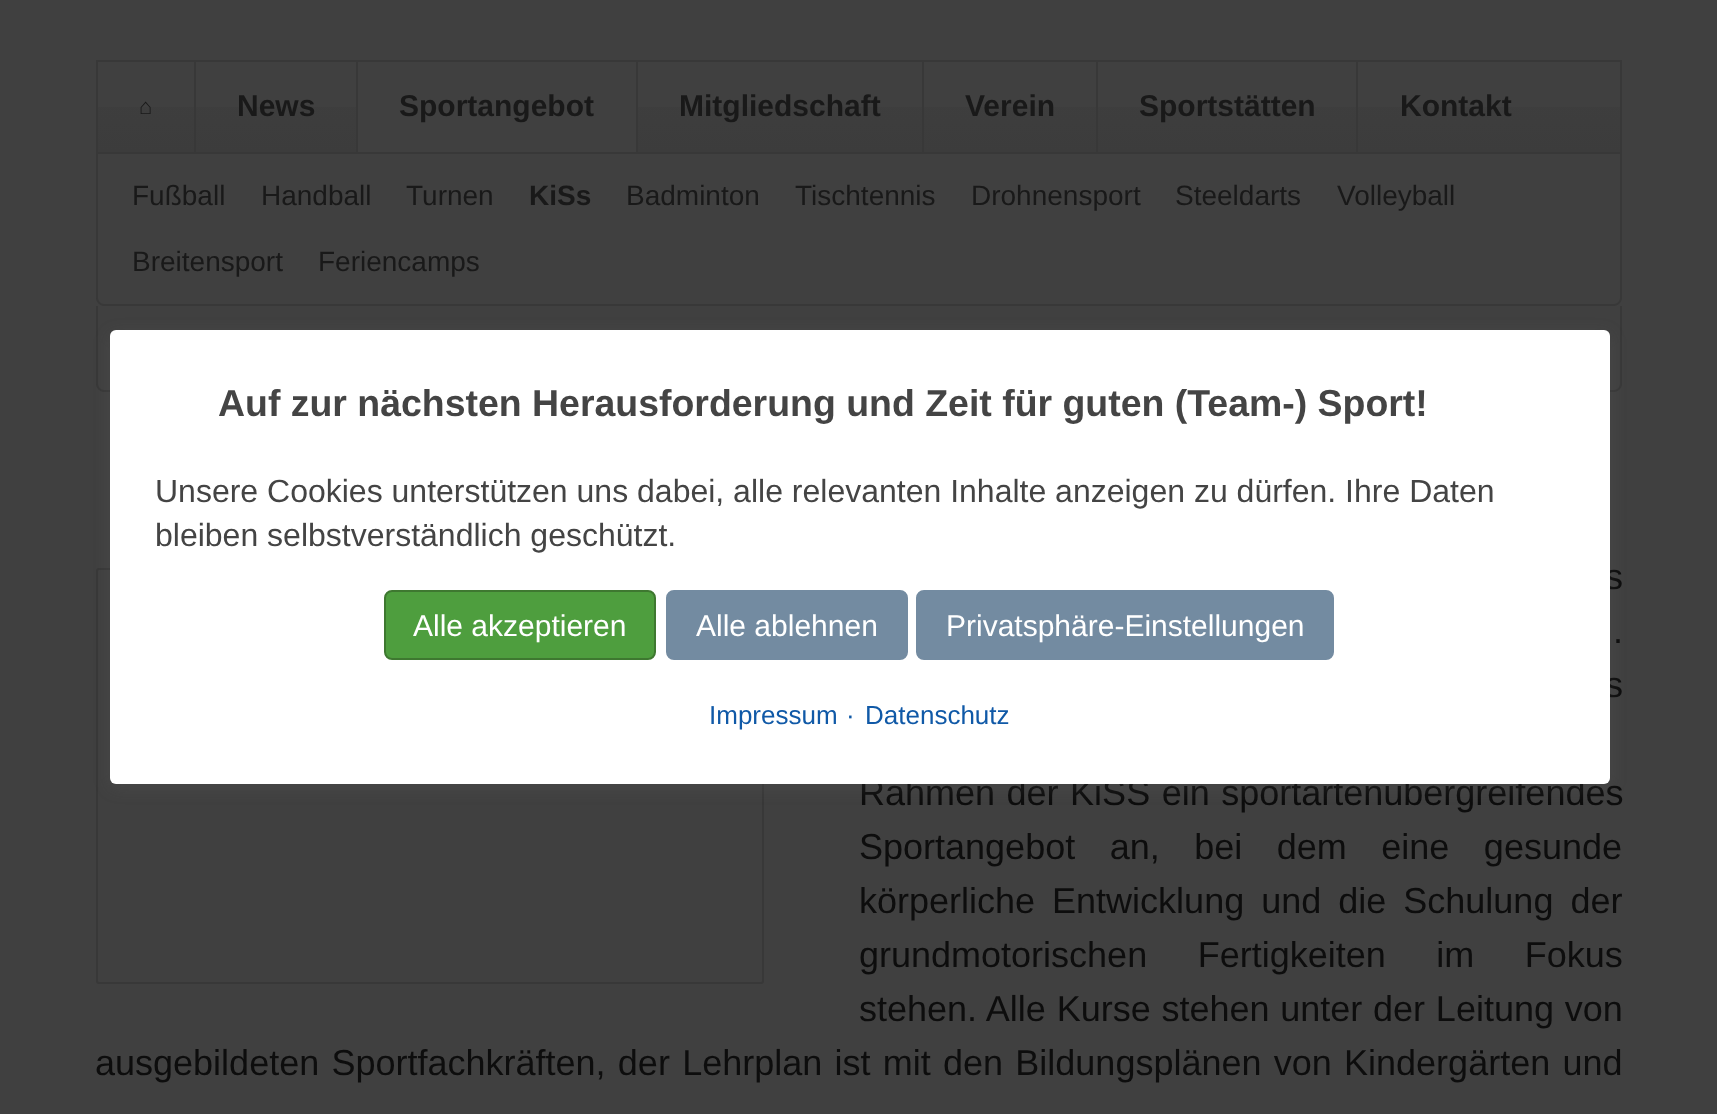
async function draw(canvas) {
	canvas.width = 1717;
	canvas.height = 1114;
	const c = canvas.getContext('2d');
	c.miterLimit = 4;
	c.fontKerning = 'normal';
	let gradient;

	c.fillStyle = '#404040';
	c.fillRect(0, 0, 1717, 1114);
	gradient = c.createLinearGradient(859, 62, 859, 152);
	gradient.addColorStop(0, '#3f3f3f');
	gradient.addColorStop(1, '#3c3c3c');
	c.fillStyle = gradient;
	c.fillRect(98, 107, 1522, 45);
	c.strokeStyle = '#383838';
	c.lineWidth = 2;
	c.strokeRect(97, 61, 1524, 92);
	c.font = '22px Liberation Serif';
	c.fillStyle = '#191919';
	c.fillText('⌂', 139, 114);
	c.fillStyle = '#383838';
	c.fillRect(194, 62, 2, 90);
	c.font = 'bold 30px Liberation Sans';
	c.fillStyle = '#191919';
	c.fillText('News', 237, 116);
	c.fillStyle = '#404040';
	c.fillRect(358, 107, 278, 45);
	c.fillStyle = '#383838';
	c.fillRect(356, 62, 2, 90);
	c.fillStyle = '#191919';
	c.fillText('Sportangebot', 399, 116);
	c.fillStyle = '#383838';
	c.fillRect(636, 62, 2, 90);
	c.fillStyle = '#191919';
	c.fillText('Mitgliedschaft', 679, 116);
	c.fillStyle = '#383838';
	c.fillRect(922, 62, 2, 90);
	c.fillStyle = '#191919';
	c.fillText('Verein', 965, 116);
	c.fillStyle = '#383838';
	c.fillRect(1096, 62, 2, 90);
	c.fillStyle = '#191919';
	c.fillText('Sportstätten', 1139, 116);
	c.fillStyle = '#383838';
	c.fillRect(1356, 62, 2, 90);
	c.fillStyle = '#191919';
	c.fillText('Kontakt', 1400, 116);
	c.fillStyle = '#383838';
	c.beginPath();
	c.moveTo(96, 154);
	c.lineTo(1622, 154);
	c.lineTo(1622, 298);
	c.bezierCurveTo(1622, 302, 1618, 306, 1614, 306);
	c.lineTo(104, 306);
	c.bezierCurveTo(100, 306, 96, 302, 96, 298);
	c.closePath();
	c.moveTo(98, 154);
	c.lineTo(1620, 154);
	c.lineTo(1620, 298);
	c.bezierCurveTo(1620, 301, 1617, 304, 1614, 304);
	c.lineTo(104, 304);
	c.bezierCurveTo(101, 304, 98, 301, 98, 298);
	c.closePath();
	c.fill('evenodd');
	c.font = '28px Liberation Sans';
	c.fillStyle = '#191919';
	for (const [text, x, y] of [
		['Fußball', 132, 205],
		['Handball', 261, 205],
		['Turnen', 406, 205],
	]) {
		c.fillText(text, x, y);
	}
	c.font = 'bold 28px Liberation Sans';
	c.fillText('KiSs', 529, 205);
	c.font = '28px Liberation Sans';
	for (const [text, x, y] of [
		['Badminton', 626, 205],
		['Tischtennis', 795, 205],
		['Drohnensport', 971, 205],
		['Steeldarts', 1175, 205],
		['Volleyball', 1337, 205],
		['Breitensport', 132, 271],
		['Feriencamps', 318, 271],
	]) {
		c.fillText(text, x, y);
	}
	c.fillStyle = '#383838';
	c.beginPath();
	c.moveTo(96, 306);
	c.lineTo(1622, 306);
	c.lineTo(1622, 384);
	c.bezierCurveTo(1622, 388, 1618, 392, 1614, 392);
	c.lineTo(104, 392);
	c.bezierCurveTo(100, 392, 96, 388, 96, 384);
	c.closePath();
	c.moveTo(98, 306);
	c.lineTo(1620, 306);
	c.lineTo(1620, 384);
	c.bezierCurveTo(1620, 387, 1617, 390, 1614, 390);
	c.lineTo(104, 390);
	c.bezierCurveTo(101, 390, 98, 387, 98, 384);
	c.closePath();
	c.fill('evenodd');
	c.beginPath();
	c.roundRect(97, 569, 666, 414, 2);
	c.stroke();
	c.wordSpacing = '8px';
	c.font = '36px Liberation Sans';
	c.fillStyle = '#0d0d0d';
	c.fillText('s', 1605, 589);
	c.wordSpacing = '10px';
	c.fillText('.', 1613, 643);
	c.wordSpacing = '43px';
	c.fillText('s', 1605, 697);
	c.wordSpacing = '1.5px';
	c.fillText('Rahmen der KiSS ein sportartenübergreifendes', 859, 805);
	c.wordSpacing = '24.5px';
	c.fillText('Sportangebot an, bei dem eine gesunde', 859, 859);
	c.wordSpacing = '7px';
	c.fillText('körperliche Entwicklung und die Schulung der', 859, 913);
	c.wordSpacing = '40.5px';
	c.fillText('grundmotorischen Fertigkeiten im Fokus', 859, 967);
	c.wordSpacing = '0.75px';
	c.fillText('stehen. Alle Kurse stehen unter der Leitung von', 859, 1021);
	c.wordSpacing = '2.25px';
	c.fillText('ausgebildeten Sportfachkräften, der Lehrplan ist mit den Bildungsplänen von Kindergärten und', 95, 1075);
	c.fillStyle = '#63636333';
	c.filter = 'blur(8px)';
	c.beginPath();
	c.roundRect(110, 334, 1500, 454, 6);
	c.fill();
	c.filter = 'none';
	c.fillStyle = '#fff';
	c.beginPath();
	c.roundRect(110, 330, 1500, 454, 6);
	c.fill();
	c.wordSpacing = '0px';
	c.font = 'bold 37.45px Liberation Sans';
	c.fillStyle = '#444';
	c.fillText('Auf zur nächsten Herausforderung und Zeit für guten (Team-) Sport!', 218, 416);
	c.font = '32px Liberation Sans';
	c.fillText('Unsere Cookies unterstützen uns dabei, alle relevanten Inhalte anzeigen zu dürfen. Ihre Daten', 155, 502);
	c.fillText('bleiben selbstverständlich geschützt.', 155, 546);
	c.fillStyle = '#4e9e3e';
	c.beginPath();
	c.roundRect(385, 591, 270, 68, 7);
	c.fill();
	c.strokeStyle = '#3e7830';
	c.stroke();
	c.font = '30px Liberation Sans';
	c.fillStyle = '#fff';
	c.fillText('Alle akzeptieren', 413, 636);
	c.fillStyle = '#738ba1';
	c.beginPath();
	c.roundRect(667, 591, 240, 68, 7);
	c.fill();
	c.strokeStyle = '#738ba1';
	c.stroke();
	c.fillStyle = '#fff';
	c.fillText('Alle ablehnen', 696, 636);
	c.fillStyle = '#738ba1';
	c.beginPath();
	c.roundRect(917, 591, 416, 68, 7);
	c.fill();
	c.stroke();
	c.fillStyle = '#fff';
	c.fillText('Privatsphäre-Einstellungen', 946, 636);
	c.font = '26px Liberation Sans';
	c.fillStyle = '#1059a7';
	for (const [text, x, y] of [
		['Impressum', 709, 724],
		['·', 846, 724],
		['Datenschutz', 865, 724],
	]) {
		c.fillText(text, x, y);
	}
}

draw(document.querySelector('canvas'));
